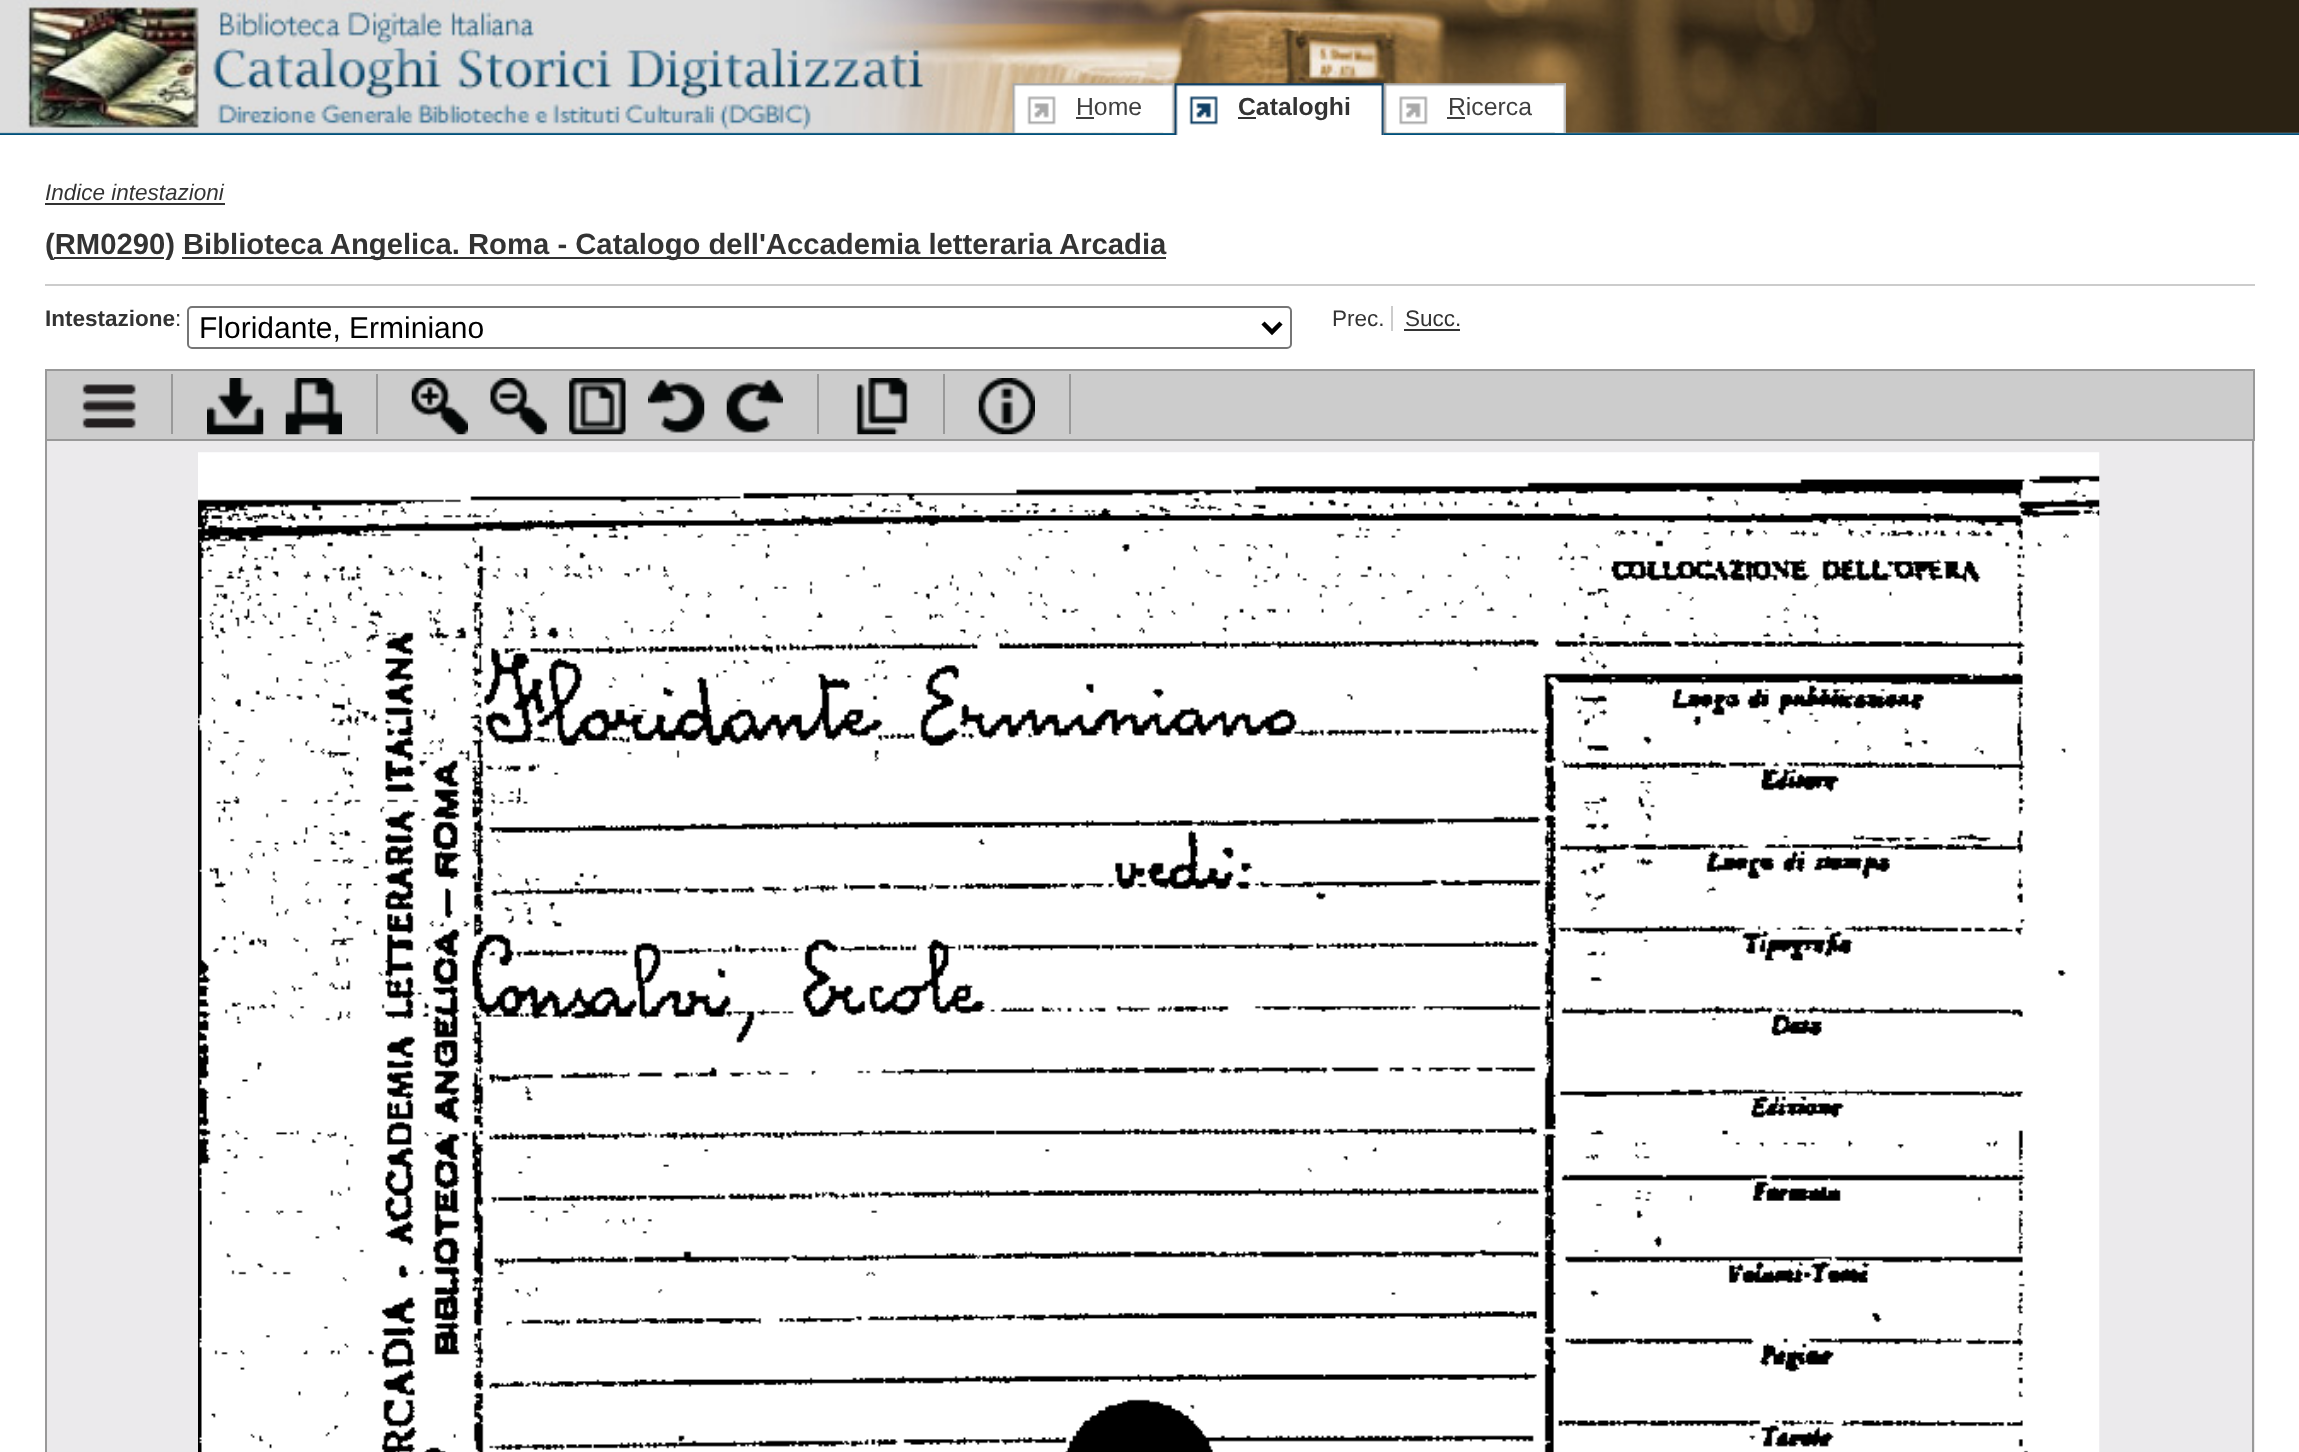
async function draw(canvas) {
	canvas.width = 2299;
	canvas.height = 1452;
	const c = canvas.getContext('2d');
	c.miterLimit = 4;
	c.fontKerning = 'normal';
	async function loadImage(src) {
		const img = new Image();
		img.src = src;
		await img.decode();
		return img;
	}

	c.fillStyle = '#fff';
	c.fillRect(0, 0, 2299, 1452);
	c.drawImage(await loadImage('img1.png'), 0, 132, 2299, 3);
	c.drawImage(await loadImage('img2.png'), 0, 0, 2299, 133);
	c.drawImage(await loadImage('img3.png'), 1012, 83, 163, 50);
	c.drawImage(await loadImage('img4.png'), 1163, 83, 12, 50);
	c.font = '24.75px Liberation Sans';
	c.fillStyle = '#3f3f3f';
	c.fillText('Home', 1076, 115);
	c.fillRect(1076, 117, 18, 2);
	c.drawImage(await loadImage('img5.png'), 1174, 83, 210, 52);
	c.drawImage(await loadImage('img6.png'), 1370, 83, 14, 52);
	c.fillStyle = '#333';
	c.fillRect(1238, 117, 18, 2);
	c.font = 'bold 24.75px Liberation Sans';
	c.fillText('Cataloghi', 1238, 115);
	c.drawImage(await loadImage('img7.png'), 1383, 83, 183, 50);
	c.drawImage(await loadImage('img8.png'), 1554, 83, 12, 50);
	c.font = '24.75px Liberation Sans';
	c.fillStyle = '#3f3f3f';
	c.fillText('Ricerca', 1448, 115);
	c.fillRect(1447, 117, 18, 2);
	c.font = 'italic 22.5px Liberation Sans';
	c.fillStyle = '#333';
	c.fillText('Indice intestazioni', 45, 200);
	c.fillRect(45, 203, 180, 2);
	c.font = 'bold 29.25px Liberation Sans';
	c.fillText('(RM0290)', 45, 254);
	c.fillRect(182, 257, 984, 2);
	c.fillText('Biblioteca Angelica. Roma - Catalogo dell\'Accademia letteraria Arcadia', 183, 254);
	c.fillRect(54, 257, 110, 2);
	c.fillStyle = '#ccc';
	c.fillRect(45, 284, 2210, 2);
	c.font = 'bold 22.5px Liberation Sans';
	c.fillStyle = '#333';
	c.fillText('Intestazione', 45, 326);
	c.font = '22.5px Liberation Sans';
	c.fillText(':', 175, 326);
	c.beginPath();
	c.roundRect(188, 307, 1103, 41, 4);
	c.strokeStyle = '#767676';
	c.lineWidth = 2;
	c.stroke();
	c.beginPath();
	c.moveTo(1263, 323);
	c.lineTo(1272, 332);
	c.lineTo(1281, 323);
	c.strokeStyle = '#000';
	c.lineWidth = 4.5;
	c.stroke();
	c.font = '30px Liberation Sans';
	c.fillStyle = '#000';
	c.fillText('Floridante, Erminiano', 199, 338);
	c.font = '22.5px Liberation Sans';
	c.fillStyle = '#333';
	c.fillText('Prec.', 1332, 326);
	c.fillStyle = '#ccc';
	c.fillRect(1391, 306, 2, 25);
	c.fillStyle = '#333';
	c.fillText('Succ.', 1405, 326);
	c.fillRect(1404, 329, 56, 2);
	c.fillStyle = '#ccc';
	c.beginPath();
	c.rect(46, 370, 2208, 70);
	c.fill();
	c.strokeStyle = '#999';
	c.lineWidth = 2;
	c.stroke();
	c.fillStyle = '#999';
	c.fillRect(171, 374, 2, 60);
	c.drawImage(await loadImage('img9.png'), 82, 384, 54, 45);
	c.fillRect(376, 374, 2, 60);
	c.drawImage(await loadImage('img10.png'), 207, 378, 57, 57);
	c.drawImage(await loadImage('img11.png'), 285, 378, 57, 57);
	c.fillRect(817, 374, 2, 60);
	c.drawImage(await loadImage('img12.png'), 411, 378, 57, 57);
	c.drawImage(await loadImage('img13.png'), 490, 378, 57, 57);
	c.drawImage(await loadImage('img14.png'), 569, 378, 57, 57);
	c.drawImage(await loadImage('img15.png'), 648, 379, 57, 54);
	c.drawImage(await loadImage('img16.png'), 726, 379, 57, 54);
	c.fillRect(943, 374, 2, 60);
	c.drawImage(await loadImage('img17.png'), 856, 378, 52, 57);
	c.fillRect(1069, 374, 2, 60);
	c.drawImage(await loadImage('img18.png'), 978, 378, 57, 57);
	for (const [x, y, w, h, color] of [
		[47, 441, 2208, 1011, '#ebeaec'],
		[2252, 441, 2, 1011, '#999'],
		[45, 441, 2, 1011, '#999'],
	]) {
		c.fillStyle = color;
		c.fillRect(x, y, w, h);
	}
	c.drawImage(await loadImage('img19.png'), 198, 452, 1902, 1000);
}

draw(document.querySelector('canvas'));
